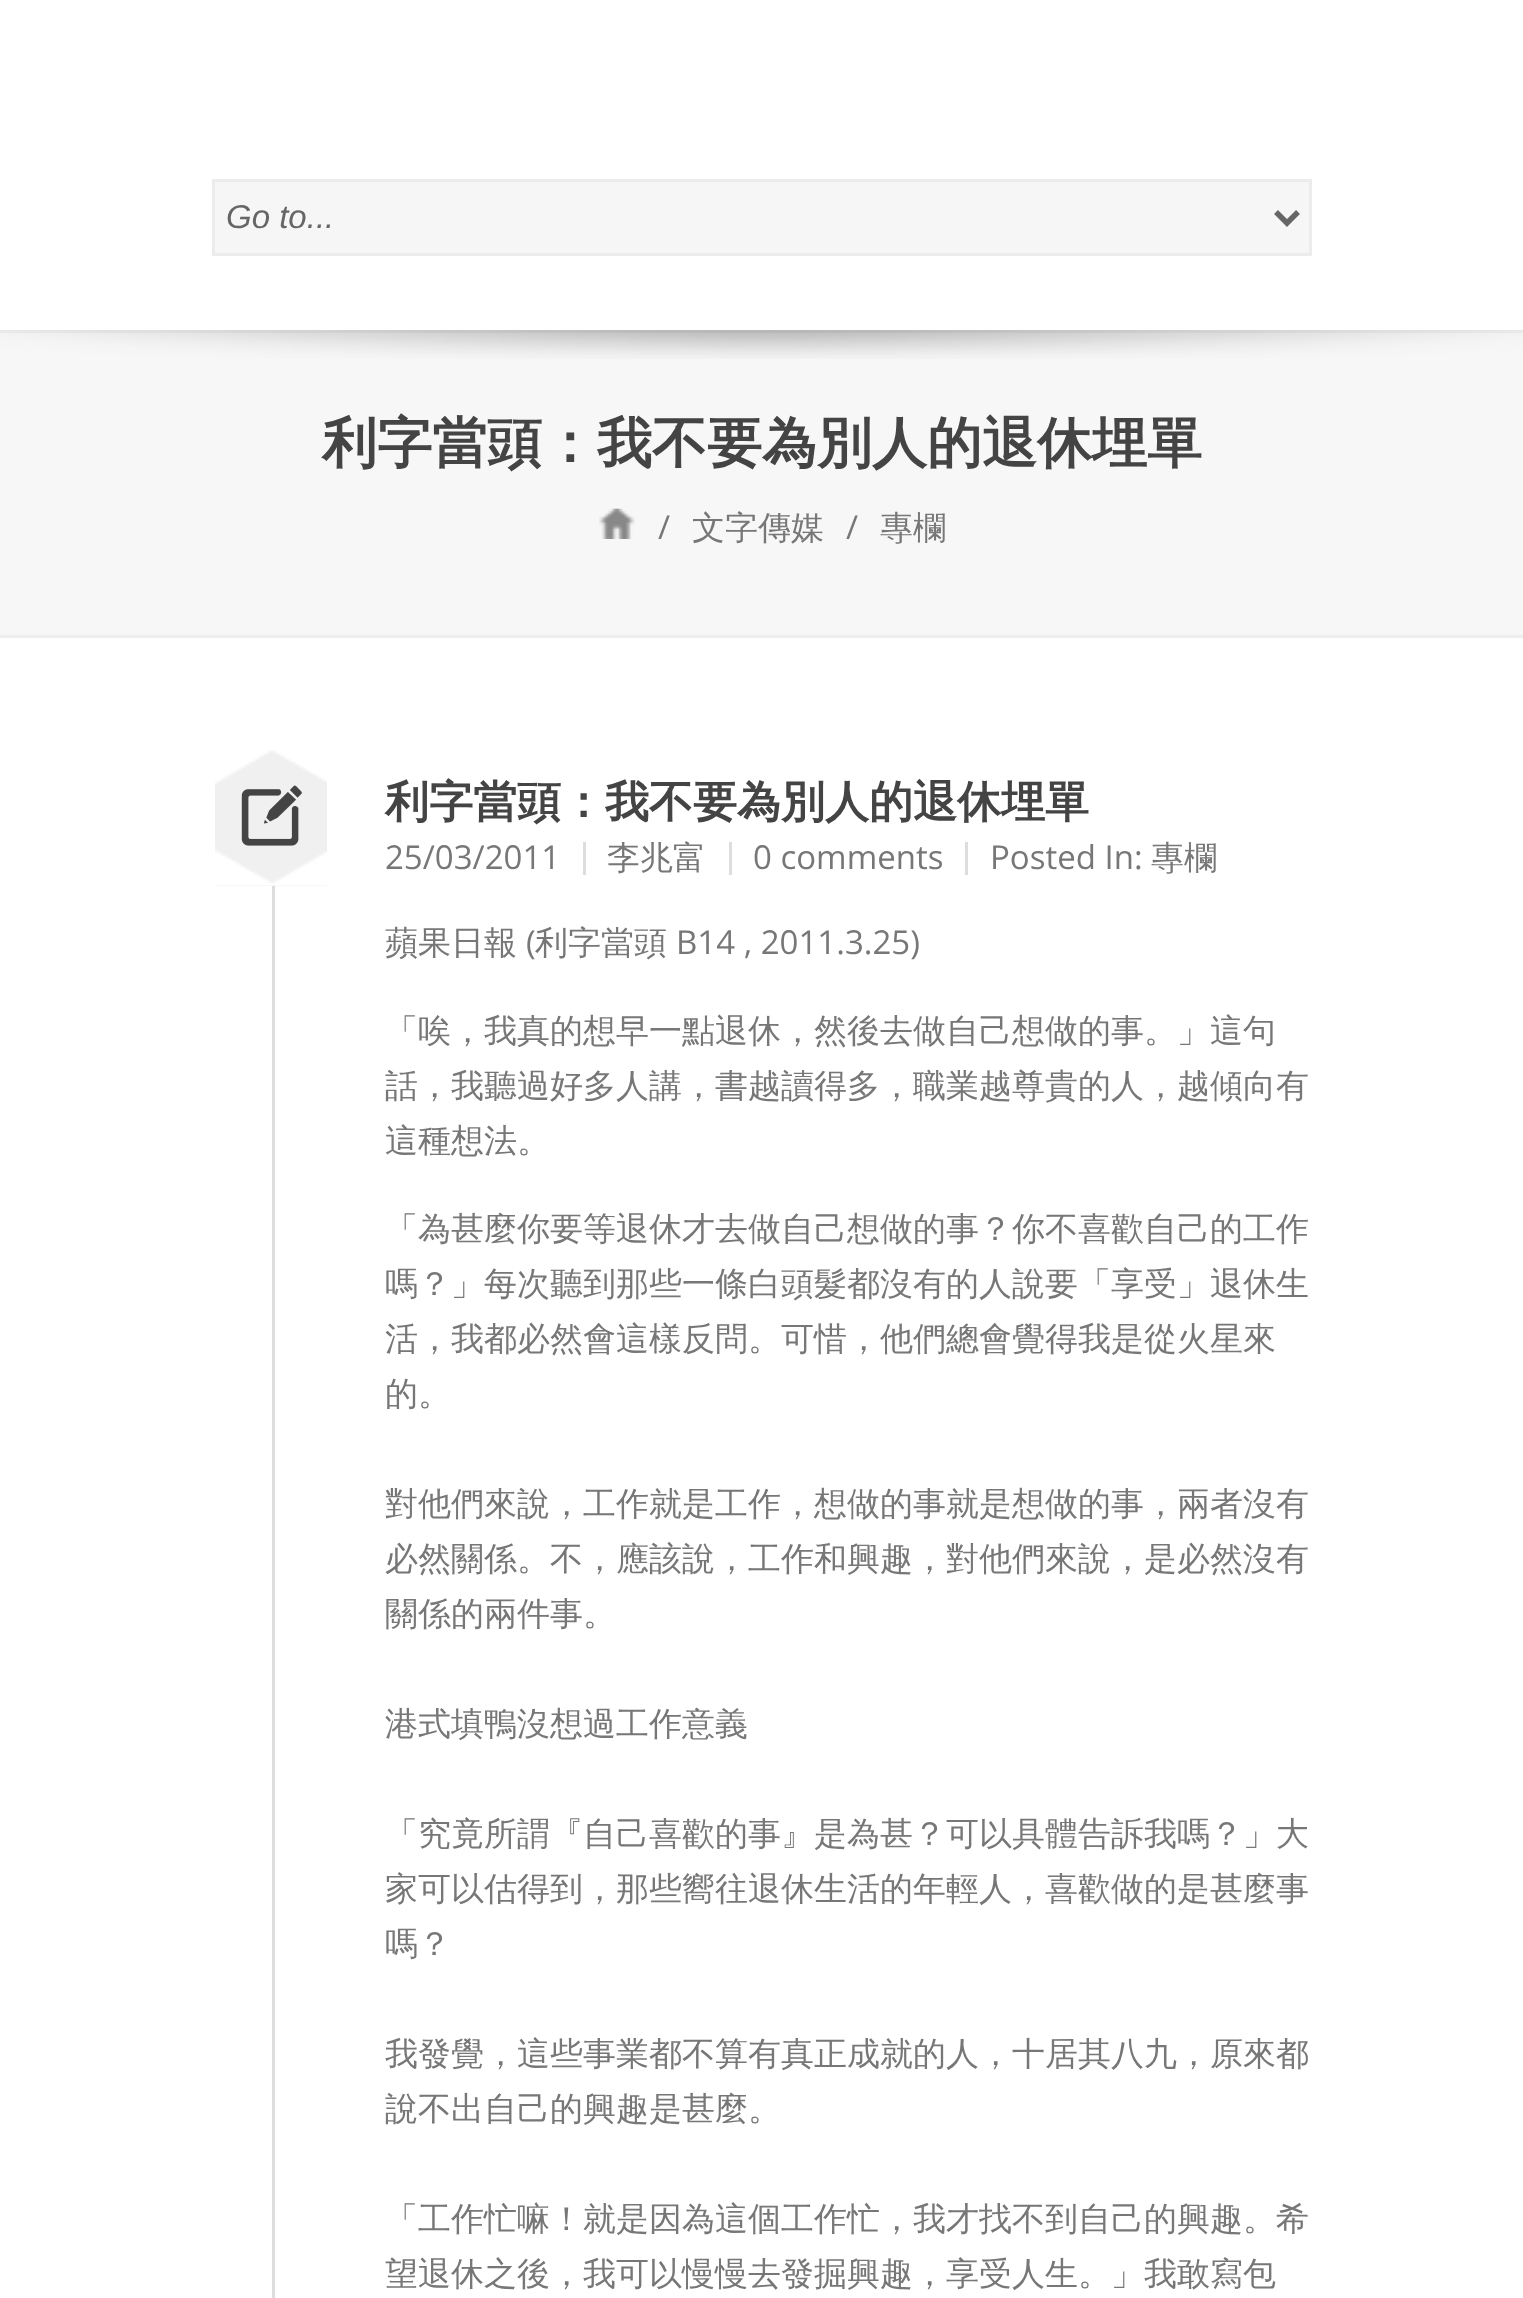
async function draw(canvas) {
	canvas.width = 1523;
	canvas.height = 2298;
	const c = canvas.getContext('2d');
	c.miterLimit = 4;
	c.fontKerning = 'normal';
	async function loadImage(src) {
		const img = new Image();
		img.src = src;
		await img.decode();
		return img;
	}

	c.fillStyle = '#fff';
	c.fillRect(0, 0, 1523, 2298);
	c.fillStyle = '#f6f6f6';
	c.beginPath();
	c.rect(213.5, 180.5, 1097, 74);
	c.fill();
	c.strokeStyle = '#ececec';
	c.lineWidth = 3;
	c.stroke();
	c.beginPath();
	c.moveTo(1276, 212);
	c.lineTo(1287, 223);
	c.lineTo(1298, 212);
	c.strokeStyle = '#666';
	c.lineWidth = 5.5;
	c.stroke();
	c.font = 'italic 33px Liberation Sans';
	c.fillStyle = '#666';
	c.fillText('Go to...', 226, 228);
	c.fillStyle = '#f7f7f7';
	c.fillRect(0, 333, 1523, 302);
	c.fillStyle = '#eee';
	c.fillRect(0, 330, 1523, 3);
	c.drawImage(await loadImage('img1.png'), 0, 330, 1523, 29);
	c.fillRect(0, 635, 1523, 3);
	c.font = 'bold 55px WenQuanYi Zen Hei';
	c.fillStyle = '#444';
	c.fillText('利字當頭：我不要為別人的退休埋單', 322, 462);
	c.drawImage(await loadImage('img2.png'), 599, 508, 36, 31);
	c.font = '33px Open Sans';
	c.fillStyle = '#777';
	c.fillText('/', 658, 539);
	c.font = '500 33px WenQuanYi Zen Hei';
	c.fillText('文字傳媒', 692, 539);
	c.font = '33px Open Sans';
	c.fillText('/', 846, 539);
	c.font = '500 33px WenQuanYi Zen Hei';
	c.fillText('專欄', 880, 539);
	c.fillStyle = '#ddd';
	c.fillRect(272, 886, 3, 1412);
	c.fillStyle = '#f0f0f0';
	c.fillRect(215, 748, 112, 138);
	c.drawImage(await loadImage('img3.png'), 215, 748, 112, 138);
	c.drawImage(await loadImage('img4.png'), 241, 785, 61, 61);
	c.font = 'bold 44px WenQuanYi Zen Hei';
	c.fillStyle = '#444';
	c.fillText('利字當頭：我不要為別人的退休埋單', 385, 817);
	c.fillStyle = '#ddd';
	c.fillRect(583, 842, 3, 33);
	c.font = '33px Open Sans';
	c.fillStyle = '#777';
	c.fillText('25/03/2011', 385, 869);
	c.fillStyle = '#ddd';
	c.fillRect(729, 842, 3, 33);
	c.font = '500 33px WenQuanYi Zen Hei';
	c.fillStyle = '#777';
	c.fillText('李兆富', 607, 869);
	c.fillStyle = '#ddd';
	c.fillRect(965, 842, 3, 33);
	c.font = '33px Open Sans';
	c.fillStyle = '#777';
	c.fillText('0 comments', 753, 869);
	c.fillText('Posted In:', 990, 869);
	c.font = '500 33px WenQuanYi Zen Hei';
	c.fillText('專欄', 1151, 869);
	c.fillText('蘋果日報', 385, 954);
	c.font = '33px Open Sans';
	c.fillText('(', 526, 954);
	c.font = '500 33px WenQuanYi Zen Hei';
	c.fillText('利字當頭', 535, 954);
	c.font = '33px Open Sans';
	c.fillText('B14 , 2011.3.25)', 676, 954);
	c.font = '500 33px WenQuanYi Zen Hei';
	for (const [text, x, y] of [
		['「唉，我真的想早一點退休，然後去做自己想做的事。」這句', 385, 1042],
		['話，我聽過好多人講，書越讀得多，職業越尊貴的人，越傾向有', 385, 1097],
		['這種想法。', 385, 1152],
		['「為甚麼你要等退休才去做自己想做的事？你不喜歡自己的工作', 385, 1240],
		['嗎？」每次聽到那些一條白頭髮都沒有的人說要「享受」退休生', 385, 1295],
		['活，我都必然會這樣反問。可惜，他們總會覺得我是從火星來', 385, 1350],
		['的。', 385, 1405],
		['對他們來說，工作就是工作，想做的事就是想做的事，兩者沒有', 385, 1515],
		['必然關係。不，應該說，工作和興趣，對他們來說，是必然沒有', 385, 1570],
		['關係的兩件事。', 385, 1625],
		['港式填鴨沒想過工作意義', 385, 1735],
		['「究竟所謂『自己喜歡的事』是為甚？可以具體告訴我嗎？」大', 385, 1845],
		['家可以估得到，那些嚮往退休生活的年輕人，喜歡做的是甚麼事', 385, 1900],
		['嗎？', 385, 1955],
		['我發覺，這些事業都不算有真正成就的人，十居其八九，原來都', 385, 2065],
		['說不出自己的興趣是甚麼。', 385, 2120],
		['「工作忙嘛！就是因為這個工作忙，我才找不到自己的興趣。希', 385, 2230],
		['望退休之後，我可以慢慢去發掘興趣，享受人生。」我敢寫包', 385, 2285],
	]) {
		c.fillText(text, x, y);
	}
}

draw(document.querySelector('canvas'));
